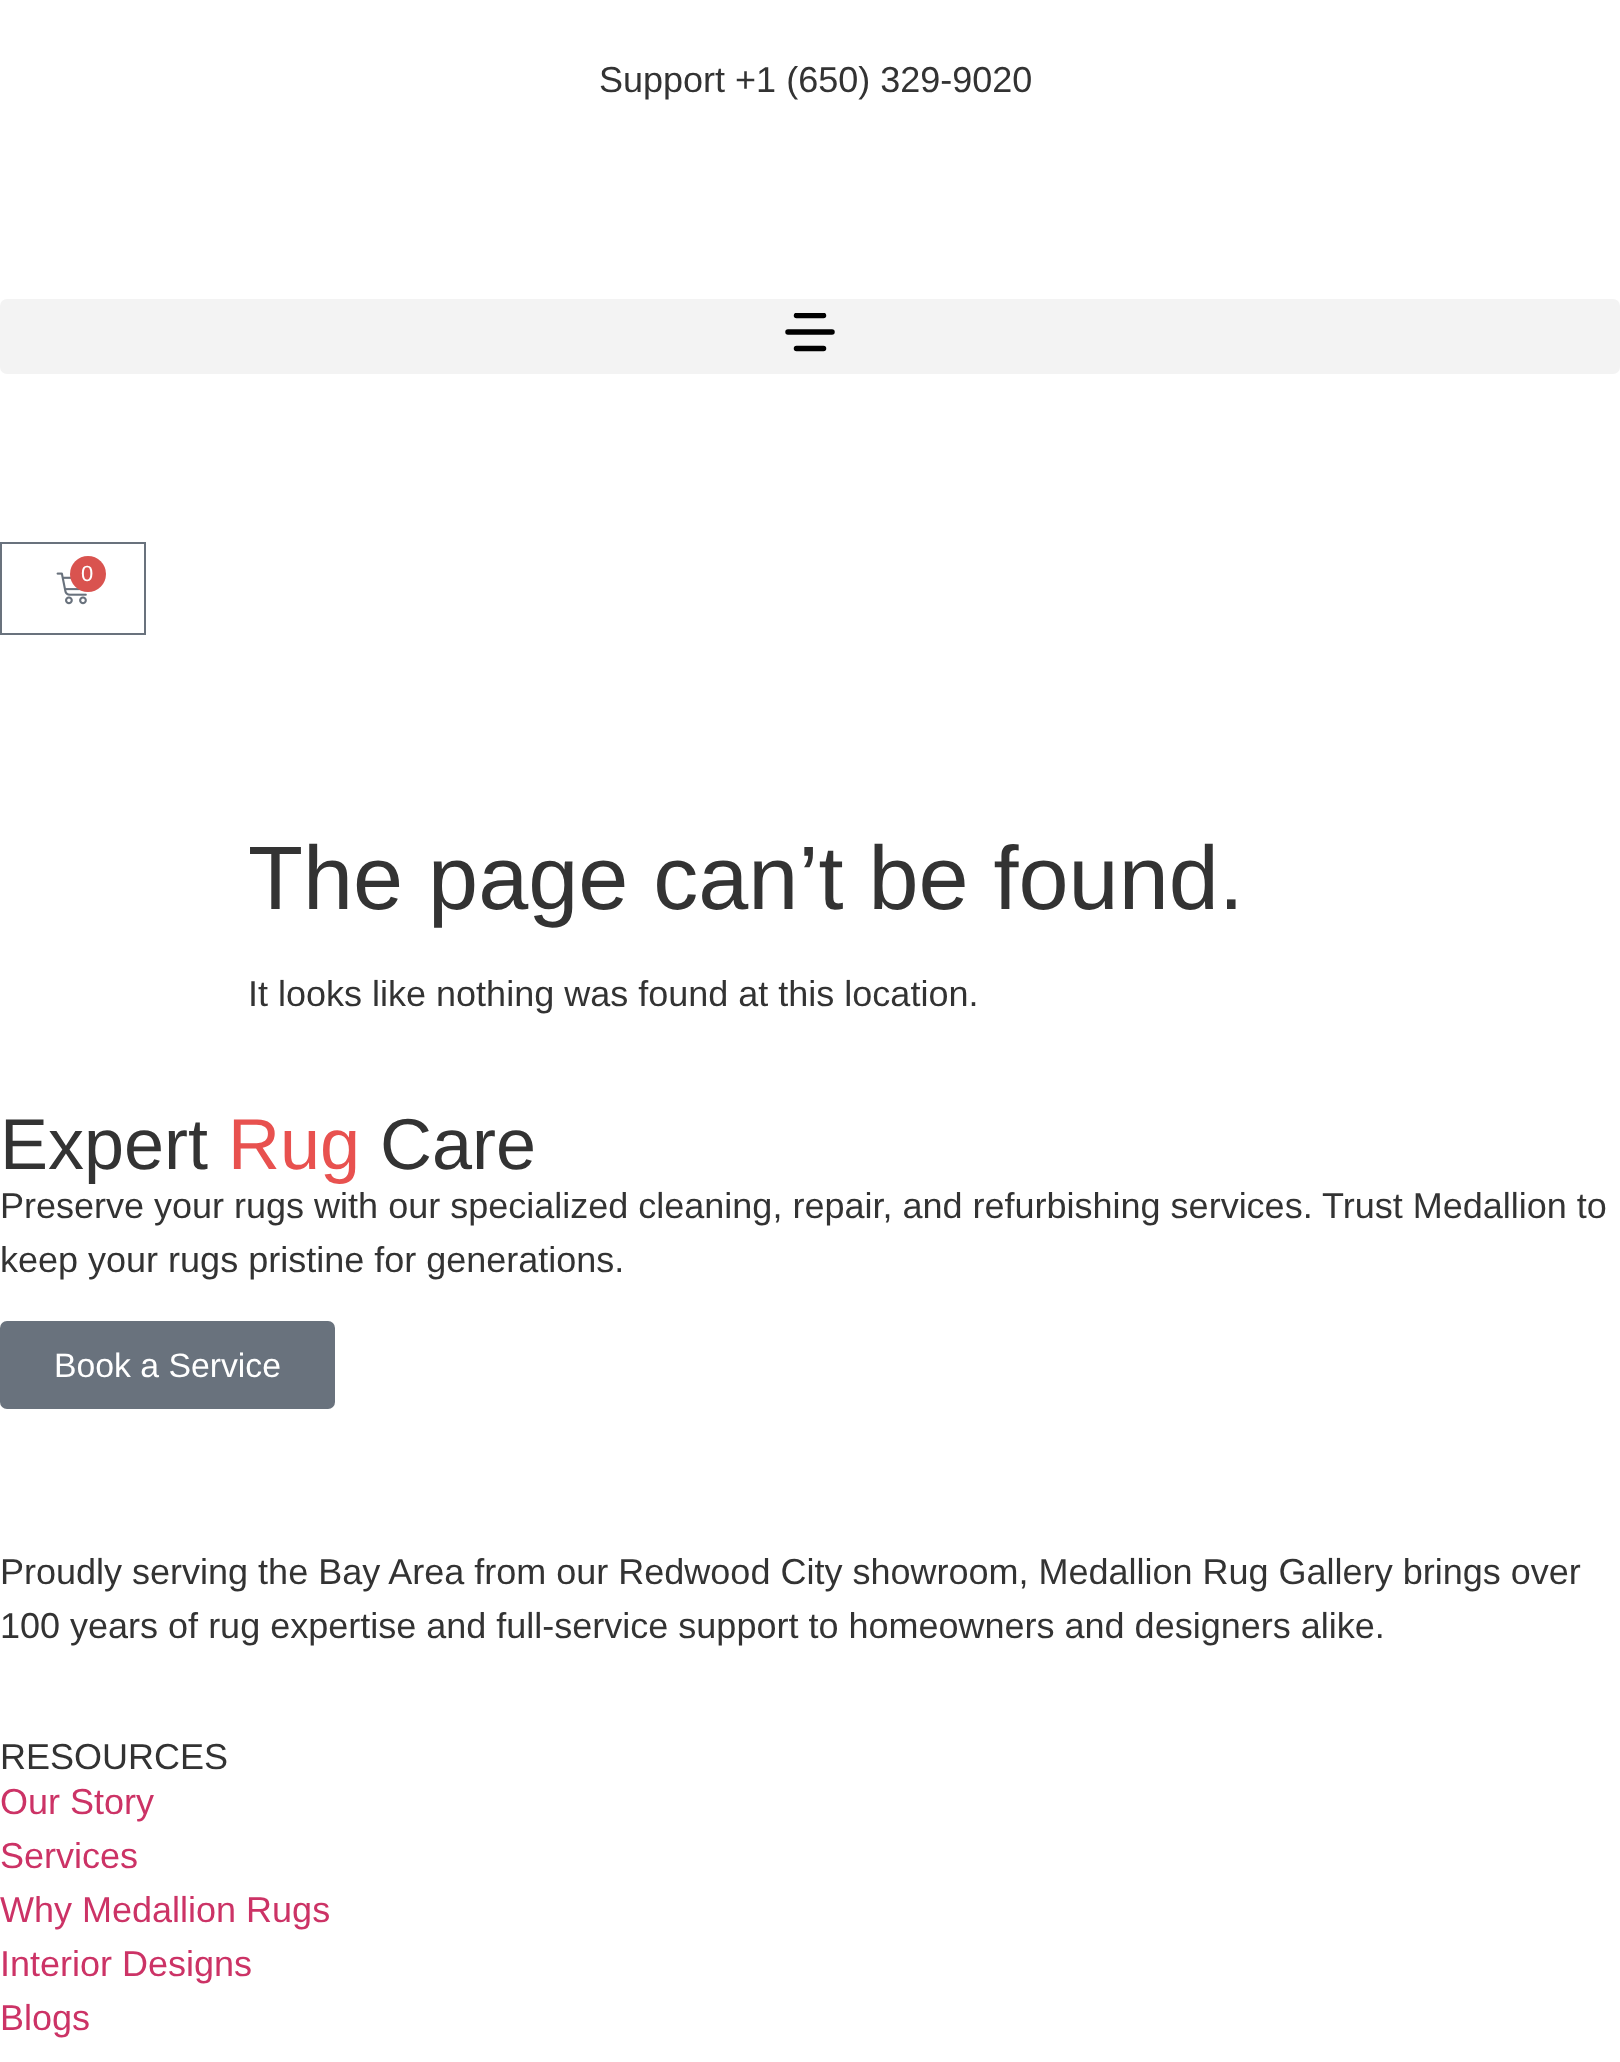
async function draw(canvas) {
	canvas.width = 1620;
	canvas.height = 2062;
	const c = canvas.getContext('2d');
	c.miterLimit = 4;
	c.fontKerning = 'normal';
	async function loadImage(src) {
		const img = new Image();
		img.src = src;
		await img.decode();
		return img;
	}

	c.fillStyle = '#fff';
	c.fillRect(0, 0, 1620, 2062);
	c.font = '36px Liberation Sans';
	c.fillStyle = '#333';
	c.fillText('Support +1 (650) 329-9020', 599, 92);
	c.fillStyle = '#f3f3f3';
	c.beginPath();
	c.roundRect(0, 299, 1620, 75, 7);
	c.fill();
	c.save();
	c.beginPath();
	c.rect(785, 313, 50, 40);
	c.clip();
	c.beginPath();
	c.moveTo(796.5, 315.5);
	c.lineTo(823.5, 315.5);
	c.moveTo(788, 332);
	c.lineTo(832, 332);
	c.lineTo(796.5, 332);
	c.moveTo(796.5, 348.5);
	c.lineTo(823.5, 348.5);
	c.strokeStyle = '#000';
	c.lineWidth = 5.5;
	c.lineCap = 'round';
	c.lineJoin = 'round';
	c.stroke();
	c.restore();
	c.strokeStyle = '#69727d';
	c.lineWidth = 2;
	c.strokeRect(1, 543, 144, 91);
	c.drawImage(await loadImage('img1.png'), 56, 572, 31, 33);
	c.fillStyle = '#d9534f';
	c.beginPath();
	c.arc(88, 574, 18, 0, 2 * Math.PI);
	c.fill();
	c.font = '22px Liberation Sans';
	c.fillStyle = '#fff';
	c.fillText('0', 81, 581);
	c.font = '90px Liberation Sans';
	c.fillStyle = '#333';
	c.fillText('The page can’t be found.', 248, 909);
	c.font = '36px Liberation Sans';
	c.fillText('It looks like nothing was found at this location.', 248, 1006);
	c.font = '72px Liberation Sans';
	c.fillText('Expert', 0, 1169);
	c.fillStyle = '#e8514f';
	c.fillText('Rug', 228, 1169);
	c.fillStyle = '#333';
	c.fillText('Care', 380, 1169);
	c.font = '36px Liberation Sans';
	c.fillText('Preserve your rugs with our specialized cleaning, repair, and refurbishing services. Trust Medallion to', 0, 1218);
	c.fillText('keep your rugs pristine for generations.', 0, 1272);
	c.fillStyle = '#69727d';
	c.beginPath();
	c.roundRect(0, 1321, 335, 88, 7);
	c.fill();
	c.font = '33.75px Liberation Sans';
	c.fillStyle = '#fff';
	c.fillText('Book a Service', 54, 1377);
	c.font = '36px Liberation Sans';
	c.fillStyle = '#333';
	for (const [text, x, y] of [
		['Proudly serving the Bay Area from our Redwood City showroom, Medallion Rug Gallery brings over', 0, 1584],
		['100 years of rug expertise and full-service support to homeowners and designers alike.', 0, 1638],
		['RESOURCES', 0, 1769],
	]) {
		c.fillText(text, x, y);
	}
	c.fillStyle = '#c36';
	for (const [text, x, y] of [
		['Our Story', 0, 1814],
		['Services', 0, 1868],
		['Why Medallion Rugs', 0, 1922],
		['Interior Designs', 0, 1976],
		['Blogs', 0, 2030],
	]) {
		c.fillText(text, x, y);
	}
}

draw(document.querySelector('canvas'));
